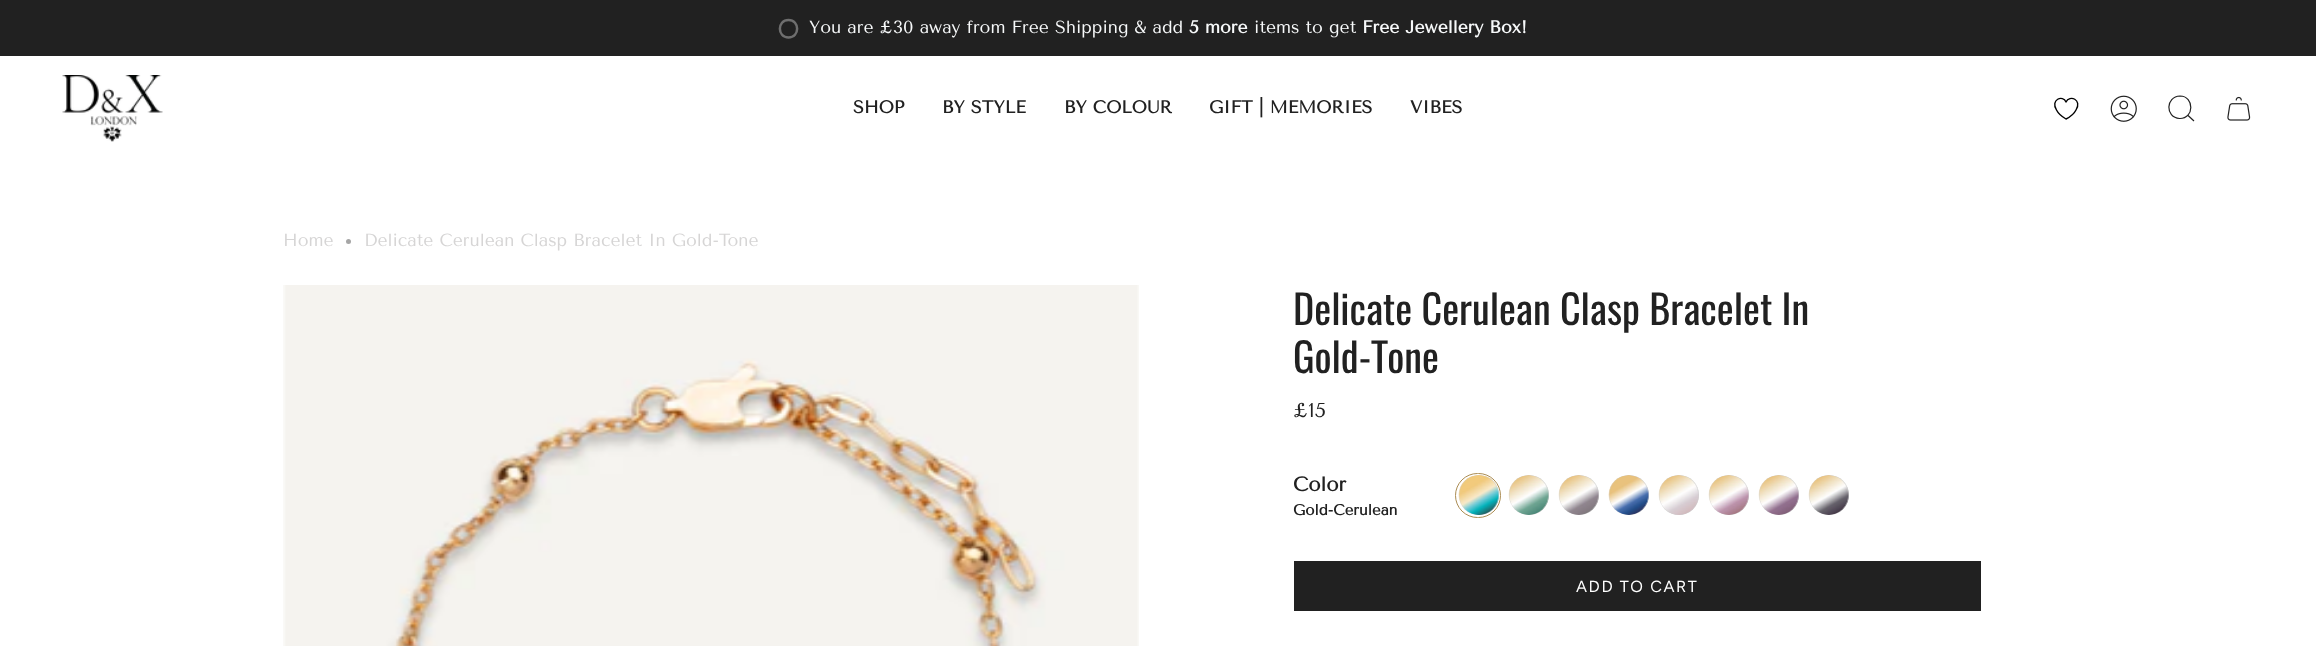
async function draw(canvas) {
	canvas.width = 2316;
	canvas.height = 646;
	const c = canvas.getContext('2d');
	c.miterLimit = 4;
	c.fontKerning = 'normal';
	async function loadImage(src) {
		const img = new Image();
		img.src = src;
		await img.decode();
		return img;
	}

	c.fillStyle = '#fff';
	c.fillRect(0, 0, 2316, 646);
	c.fillStyle = '#212121';
	c.fillRect(0, 0, 2316, 56);
	c.beginPath();
	c.moveTo(788.5, 20);
	c.bezierCurveTo(777, 20, 777, 37.5, 788.5, 37.5);
	c.bezierCurveTo(800, 37.5, 800, 20, 788.5, 20);
	c.closePath();
	c.strokeStyle = '#6e6e6e';
	c.lineWidth = 2.5;
	c.stroke();
	c.font = '17.5px Tenor Sans';
	c.fillStyle = '#f7f9fa';
	c.fillText('You are £30 away from Free Shipping', 809, 33);
	c.fillText('& add', 1134, 33);
	c.font = 'bold 17.5px Tenor Sans';
	c.fillText('5 more', 1189, 33);
	c.font = '17.5px Tenor Sans';
	c.fillText('items to get', 1254, 33);
	c.font = 'bold 17.5px Tenor Sans';
	c.fillText('Free Jewellery Box!', 1362, 33);
	c.drawImage(await loadImage('img1.png'), 62, 75, 101, 67);
	c.fillStyle = '#212121';
	for (const [text, x, y] of [
		['SHOP', 853, 113],
		['BY STYLE', 942, 113],
		['BY COLOUR', 1064, 113],
		['GIFT | MEMORIES', 1209, 113],
		['VIBES', 1410, 113],
	]) {
		c.fillText(text, x, y);
	}
	c.beginPath();
	c.moveTo(2066, 119);
	c.bezierCurveTo(2062.5, 117, 2058.5, 114, 2056.5, 110);
	c.bezierCurveTo(2050, 99.5, 2063, 94.5, 2066, 102);
	c.bezierCurveTo(2069.5, 94.5, 2082.5, 99.5, 2076, 110);
	c.bezierCurveTo(2074, 114, 2070, 117, 2066, 119);
	c.closePath();
	c.strokeStyle = '#000';
	c.lineWidth = 1.4;
	c.lineCap = 'round';
	c.lineJoin = 'round';
	c.stroke();
	c.drawImage(await loadImage('img2.png'), 2110, 95, 27, 27);
	c.beginPath();
	c.moveTo(2180, 96);
	c.bezierCurveTo(2194.5, 96, 2194.5, 119, 2179.5, 118.5);
	c.bezierCurveTo(2165, 117.5, 2165.5, 96.5, 2180, 96);
	c.closePath();
	c.moveTo(2187.5, 115);
	c.lineTo(2194, 121);
	c.strokeStyle = '#212121';
	c.lineWidth = 1.2;
	c.lineCap = 'butt';
	c.lineJoin = 'miter';
	c.stroke();
	c.drawImage(await loadImage('img3.png'), 2227, 96, 24, 25);
	c.font = '17.5px Tenor Sans';
	c.fillStyle = '#d6d5d5';
	c.fillText('Home', 283, 246);
	c.fillStyle = '#a6a6a6';
	c.beginPath();
	c.arc(348.5, 241.5, 2.5, 0, 2 * Math.PI);
	c.fill();
	c.fillStyle = '#d6d5d5';
	c.fillText('Delicate Cerulean Clasp Bracelet In Gold-Tone', 364, 246);
	c.drawImage(await loadImage('img4.png'), 283, 285, 856, 361);
	c.font = '40.25px Oswald';
	c.fillStyle = '#212121';
	c.fillText('Delicate Cerulean Clasp Bracelet In', 1293, 325);
	c.fillText('Gold-Tone', 1293, 373);
	c.font = '20px Tenor Sans';
	c.fillText('£15', 1293, 417);
	c.font = 'bold 20px Tenor Sans';
	c.fillText('Color', 1293, 491);
	c.font = 'bold 15px Tenor Sans';
	c.fillText('Gold-Cerulean', 1293, 515);
	c.fillStyle = '#ccc';
	c.beginPath();
	c.arc(1479, 495, 20, 0, 2 * Math.PI);
	c.fill();
	c.drawImage(await loadImage('img5.png'), 1458, 475, 42, 40);
	c.beginPath();
	c.roundRect(1455.5, 473.5, 45, 44, 22);
	c.strokeStyle = '#ab8c52';
	c.lineWidth = 1;
	c.stroke();
	c.beginPath();
	c.arc(1529, 495, 20, 0, 2 * Math.PI);
	c.fill();
	c.drawImage(await loadImage('img6.png'), 1508, 475, 41, 40);
	c.beginPath();
	c.arc(1579, 495, 20, 0, 2 * Math.PI);
	c.fill();
	c.drawImage(await loadImage('img7.png'), 1558, 475, 41, 40);
	c.beginPath();
	c.arc(1629, 495, 20, 0, 2 * Math.PI);
	c.fill();
	c.drawImage(await loadImage('img8.png'), 1608, 475, 41, 40);
	c.beginPath();
	c.arc(1679, 495, 20, 0, 2 * Math.PI);
	c.fill();
	c.drawImage(await loadImage('img9.png'), 1658, 475, 41, 40);
	c.beginPath();
	c.arc(1729, 495, 20, 0, 2 * Math.PI);
	c.fill();
	c.drawImage(await loadImage('img10.png'), 1708, 475, 41, 40);
	c.beginPath();
	c.arc(1779, 495, 20, 0, 2 * Math.PI);
	c.fill();
	c.drawImage(await loadImage('img11.png'), 1758, 475, 41, 40);
	c.beginPath();
	c.arc(1829, 495, 20, 0, 2 * Math.PI);
	c.fill();
	c.drawImage(await loadImage('img12.png'), 1808, 475, 41, 40);
	c.fillStyle = '#212121';
	c.fillRect(1294, 561, 687, 50);
	c.letterSpacing = '1.6px';
	c.font = '16.25px Figtree';
	c.fillStyle = '#fff';
	c.fillText('ADD TO CART', 1576, 592);
}

draw(document.querySelector('canvas'));
